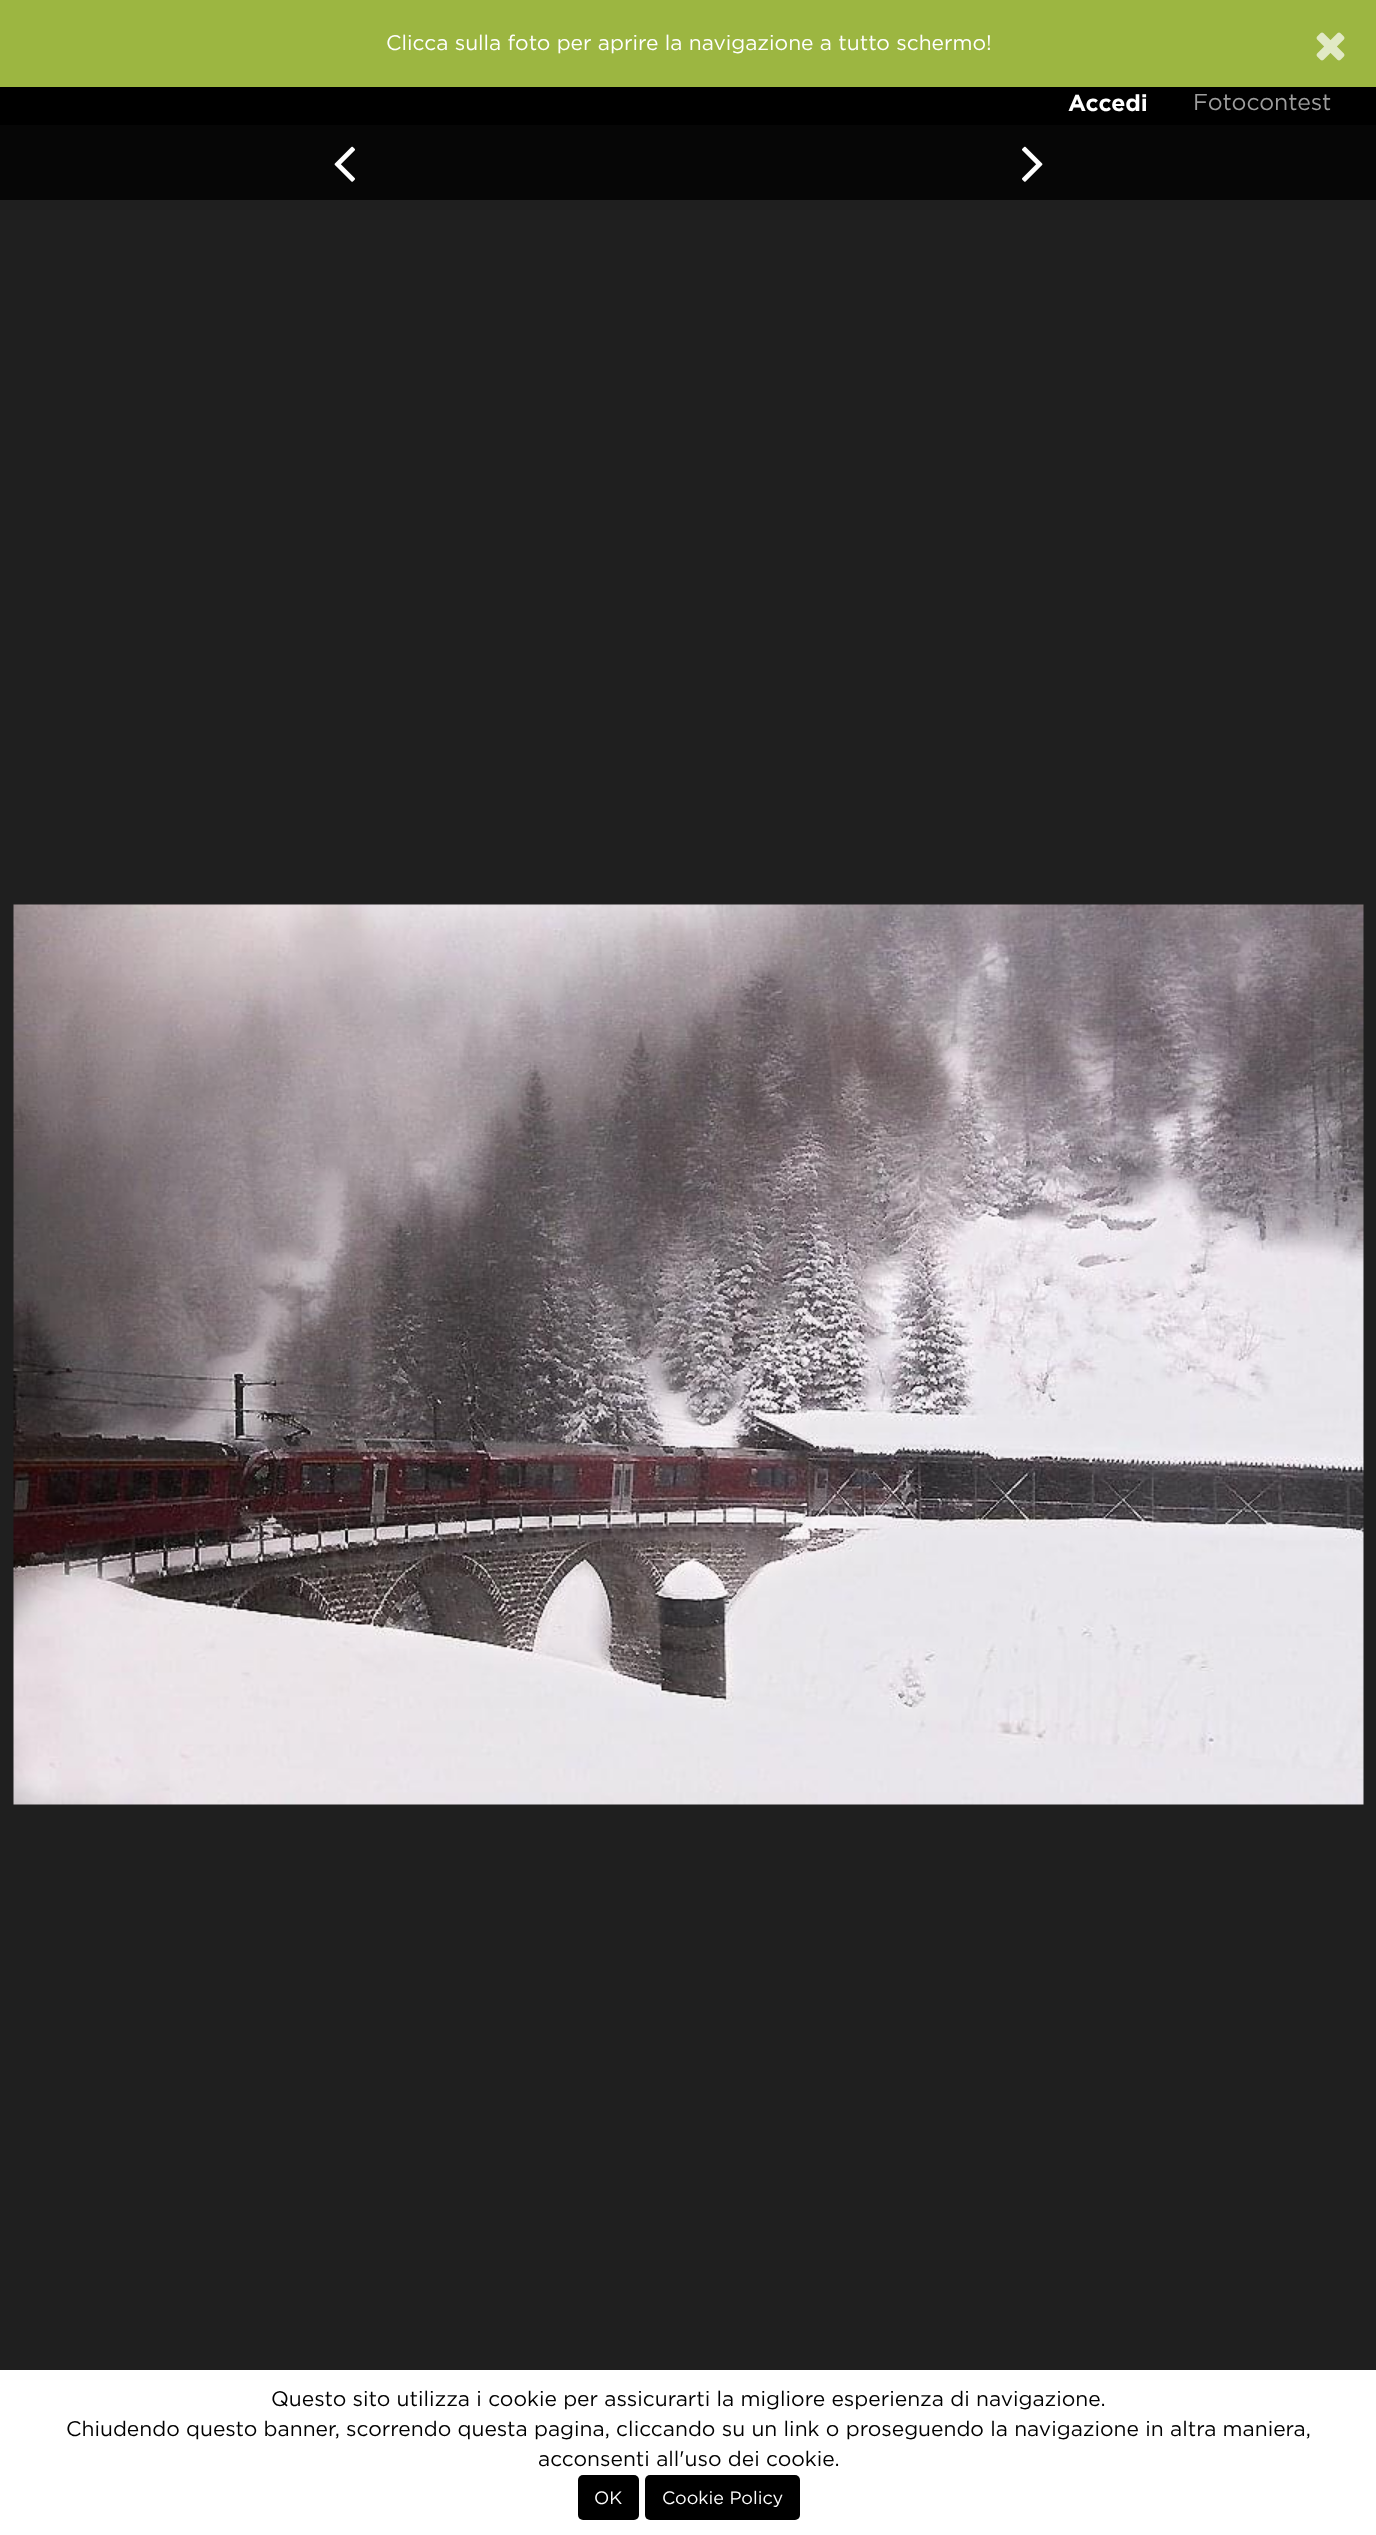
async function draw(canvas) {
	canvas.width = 1376;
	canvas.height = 2535;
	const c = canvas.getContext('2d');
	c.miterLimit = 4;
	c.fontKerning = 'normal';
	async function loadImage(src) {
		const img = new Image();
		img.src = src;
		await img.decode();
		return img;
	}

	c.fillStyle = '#1f1f1f';
	c.fillRect(0, 0, 1376, 2535);
	c.fillStyle = '#9cb641';
	c.fillRect(0, 0, 1376, 87);
	c.font = '21px Gotham';
	c.fillStyle = '#fff';
	c.fillText('Clicca sulla foto per aprire la navigazione a tutto schermo!', 386, 50);
	c.drawImage(await loadImage('img1.png'), 1316, 32, 29, 29);
	c.fillStyle = '#060606';
	c.fillRect(0, 125, 1376, 75);
	c.drawImage(await loadImage('img2.png'), 334, 146, 21, 36);
	c.drawImage(await loadImage('img3.png'), 1022, 146, 21, 36);
	c.drawImage(await loadImage('img4.png'), 13, 904, 1351, 901);
	c.fillStyle = '#000';
	c.fillRect(0, 87, 1376, 38);
	c.font = 'bold 23px Gotham';
	c.fillStyle = '#fff';
	c.fillText('Accedi', 1068, 111);
	c.font = '23px Gotham';
	c.fillStyle = '#9d9d9d';
	c.fillText('Fotocontest', 1193, 110);
	c.fillStyle = '#fff';
	c.fillRect(0, 2370, 1376, 165);
	c.font = '21px Gotham';
	c.fillStyle = '#000';
	for (const [text, x, y] of [
		['Questo sito utilizza i cookie per assicurarti la migliore esperienza di navigazione.', 271, 2406],
		['Chiudendo questo banner, scorrendo questa pagina, cliccando su un link o proseguendo la navigazione in altra maniera,', 66, 2436],
		['acconsenti all\'uso dei cookie.', 538, 2466],
	]) {
		c.fillText(text, x, y);
	}
	c.beginPath();
	c.roundRect(578, 2475, 61, 45, 5);
	c.fill();
	c.font = '18px Gotham';
	c.fillStyle = '#fff';
	c.fillText('OK', 594, 2504);
	c.fillStyle = '#000';
	c.beginPath();
	c.roundRect(645, 2475, 155, 45, 5);
	c.fill();
	c.fillStyle = '#fff';
	c.fillText('Cookie Policy', 662, 2504);
}

draw(document.querySelector('canvas'));
